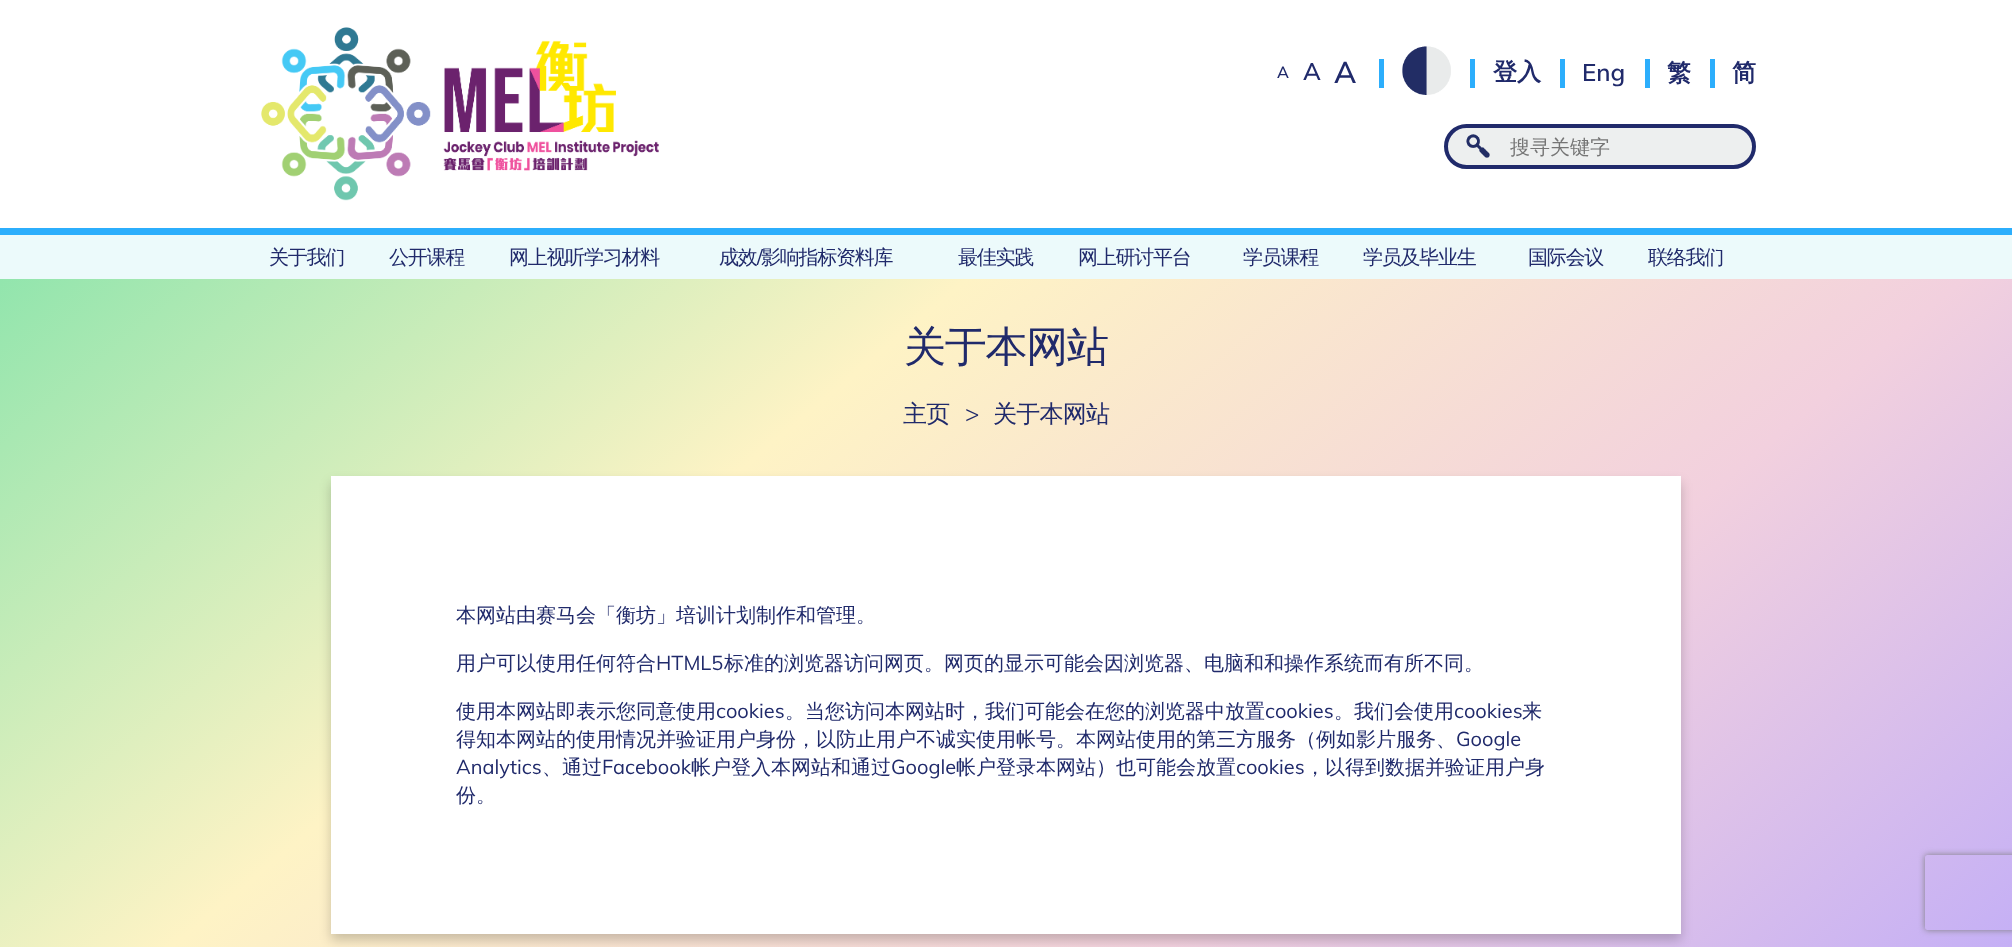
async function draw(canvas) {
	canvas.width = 2012;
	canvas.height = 947;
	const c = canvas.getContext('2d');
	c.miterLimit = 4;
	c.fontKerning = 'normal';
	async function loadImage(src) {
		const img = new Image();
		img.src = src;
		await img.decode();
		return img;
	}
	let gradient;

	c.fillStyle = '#fff';
	c.fillRect(0, 0, 2012, 947);
	c.drawImage(await loadImage('img1.png'), 261, 27, 398, 174);
	c.font = '600 16px Muli';
	c.fillStyle = '#202a6b';
	c.fillText('A', 1277, 78);
	c.font = '600 24px Muli';
	c.fillText('A', 1303, 80);
	c.font = '600 30px Muli';
	c.fillText('A', 1334, 83);
	c.fillStyle = '#2caefc';
	c.fillRect(1379, 59, 5, 29);
	c.drawImage(await loadImage('img2.png'), 1402, 46, 49, 49);
	c.fillRect(1470, 59, 5, 29);
	c.font = 'bold 24px WenQuanYi Zen Hei';
	c.fillStyle = '#202a6b';
	c.fillText('登入', 1493, 80);
	c.fillStyle = '#2caefc';
	c.fillRect(1560, 59, 5, 29);
	c.font = '600 24px Muli';
	c.fillStyle = '#202a6b';
	c.fillText('Eng', 1582, 81);
	c.fillStyle = '#2caefc';
	c.fillRect(1645, 59, 5, 29);
	c.font = 'bold 24px WenQuanYi Zen Hei';
	c.fillStyle = '#202a6b';
	c.fillText('繁', 1667, 81);
	c.fillStyle = '#2caefc';
	c.fillRect(1710, 59, 5, 29);
	c.fillStyle = '#202a6b';
	c.fillText('简', 1732, 81);
	c.fillStyle = '#edefef';
	c.beginPath();
	c.roundRect(1444, 124, 312, 45, 22.5);
	c.fill();
	c.drawImage(await loadImage('img3.png'), 1466, 134, 24, 24);
	c.beginPath();
	c.roundRect(1446, 126, 308, 41, 20.5);
	c.strokeStyle = '#202a6b';
	c.lineWidth = 4;
	c.stroke();
	c.font = '500 20px WenQuanYi Zen Hei';
	c.fillStyle = '#757575';
	c.fillText('搜寻关键字', 1510, 154);
	c.fillStyle = '#ecfafb';
	c.fillRect(0, 235, 2012, 44);
	c.fillStyle = '#2caefc';
	c.fillRect(0, 228, 2012, 7);
	c.letterSpacing = '-1.25px';
	c.fillStyle = '#202a6b';
	for (const [text, x, y] of [
		['关于我们', 269, 264],
		['公开课程', 389, 264],
		['网上视听学习材料', 509, 264],
		['成效', 719, 264],
	]) {
		c.fillText(text, x, y);
	}
	c.font = '20px Muli';
	c.fillText('/', 757, 264);
	c.font = '500 20px WenQuanYi Zen Hei';
	for (const [text, x, y] of [
		['影响指标资料库', 761, 264],
		['最佳实践', 958, 264],
		['网上研讨平台', 1078, 264],
		['学员课程', 1243, 264],
		['学员及毕业生', 1363, 264],
		['国际会议', 1528, 264],
		['联络我们', 1648, 264],
	]) {
		c.fillText(text, x, y);
	}
	gradient = c.createLinearGradient(1612, 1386, 401, -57);
	gradient.addColorStop(0, '#beabf9');
	gradient.addColorStop(0.33, '#f2d0de');
	gradient.addColorStop(0.67, '#fef3c5');
	gradient.addColorStop(1, '#92e5ad');
	c.fillStyle = gradient;
	c.fillRect(0, 279, 2012, 668);
	c.font = '500 42px WenQuanYi Zen Hei';
	c.fillStyle = '#202a6b';
	c.fillText('关于本网站', 904, 361);
	c.letterSpacing = '-0.75px';
	c.font = '500 24px WenQuanYi Zen Hei';
	c.fillText('主页', 903, 422);
	c.font = '300 24px Muli';
	c.fillText('>', 965, 422);
	c.font = '500 24px WenQuanYi Zen Hei';
	c.fillText('关于本网站', 993, 422);
	c.fillStyle = '#00000033';
	c.filter = 'blur(6px)';
	c.beginPath();
	c.rect(331, 483, 1350, 457);
	c.fill();
	c.filter = 'none';
	c.fillStyle = '#fff';
	c.fillRect(331, 476, 1350, 458);
	c.letterSpacing = '0px';
	c.font = '500 20px WenQuanYi Zen Hei';
	c.fillStyle = '#202a6b';
	c.fillText('本网站由赛马会「衡坊」培训计划制作和管理。', 456, 622);
	c.fillText('用户可以使用任何符合', 456, 670);
	c.font = '20px Muli';
	c.fillText('HTML5', 656, 670);
	c.font = '500 20px WenQuanYi Zen Hei';
	c.fillText('标准的浏览器访问网页。网页的显示可能会因浏览器、电脑和和操作系统而有所不同。', 724, 670);
	c.fillText('使用本网站即表示您同意使用', 456, 718);
	c.font = '20px Muli';
	c.fillText('cookies', 716, 718);
	c.font = '500 20px WenQuanYi Zen Hei';
	c.fillText('。当您访问本网站时，我们可能会在您的浏览器中放置', 785, 718);
	c.font = '20px Muli';
	c.fillText('cookies', 1265, 718);
	c.font = '500 20px WenQuanYi Zen Hei';
	c.fillText('。我们会使用', 1334, 718);
	c.font = '20px Muli';
	c.fillText('cookies', 1454, 718);
	c.font = '500 20px WenQuanYi Zen Hei';
	c.fillText('来', 1522, 718);
	c.fillText('得知本网站的使用情况并验证用户身份，以防止用户不诚实使用帐号。本网站使用的第三方服务（例如影片服务、', 456, 746);
	c.font = '20px Muli';
	c.fillText('Google', 1456, 746);
	c.fillText('Analytics', 456, 774);
	c.font = '500 20px WenQuanYi Zen Hei';
	c.fillText('、通过', 542, 774);
	c.font = '20px Muli';
	c.fillText('Facebook', 602, 774);
	c.font = '500 20px WenQuanYi Zen Hei';
	c.fillText('帐户登入本网站和通过', 691, 774);
	c.font = '20px Muli';
	c.fillText('Google', 891, 774);
	c.font = '500 20px WenQuanYi Zen Hei';
	c.fillText('帐户登录本网站）也可能会放置', 956, 774);
	c.font = '20px Muli';
	c.fillText('cookies', 1236, 774);
	c.font = '500 20px WenQuanYi Zen Hei';
	c.fillText('，以得到数据并验证用户身', 1305, 774);
	c.fillText('份。', 456, 802);
	c.save();
	c.beginPath();
	c.moveTo(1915, 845);
	c.lineTo(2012, 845);
	c.lineTo(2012, 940);
	c.lineTo(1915, 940);
	c.closePath();
	c.moveTo(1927.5, 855);
	c.lineTo(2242.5, 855);
	c.bezierCurveTo(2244, 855, 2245, 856, 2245, 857.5);
	c.lineTo(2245, 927.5);
	c.bezierCurveTo(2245, 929, 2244, 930, 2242.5, 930);
	c.lineTo(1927.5, 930);
	c.bezierCurveTo(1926, 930, 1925, 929, 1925, 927.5);
	c.lineTo(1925, 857.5);
	c.bezierCurveTo(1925, 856, 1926, 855, 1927.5, 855);
	c.closePath();
	c.clip('evenodd');
	c.fillStyle = '#808080';
	c.filter = 'blur(3px)';
	c.beginPath();
	c.roundRect(1925, 855, 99, 75, 2.5);
	c.fill();
	c.filter = 'none';
	c.restore();
}

draw(document.querySelector('canvas'));
